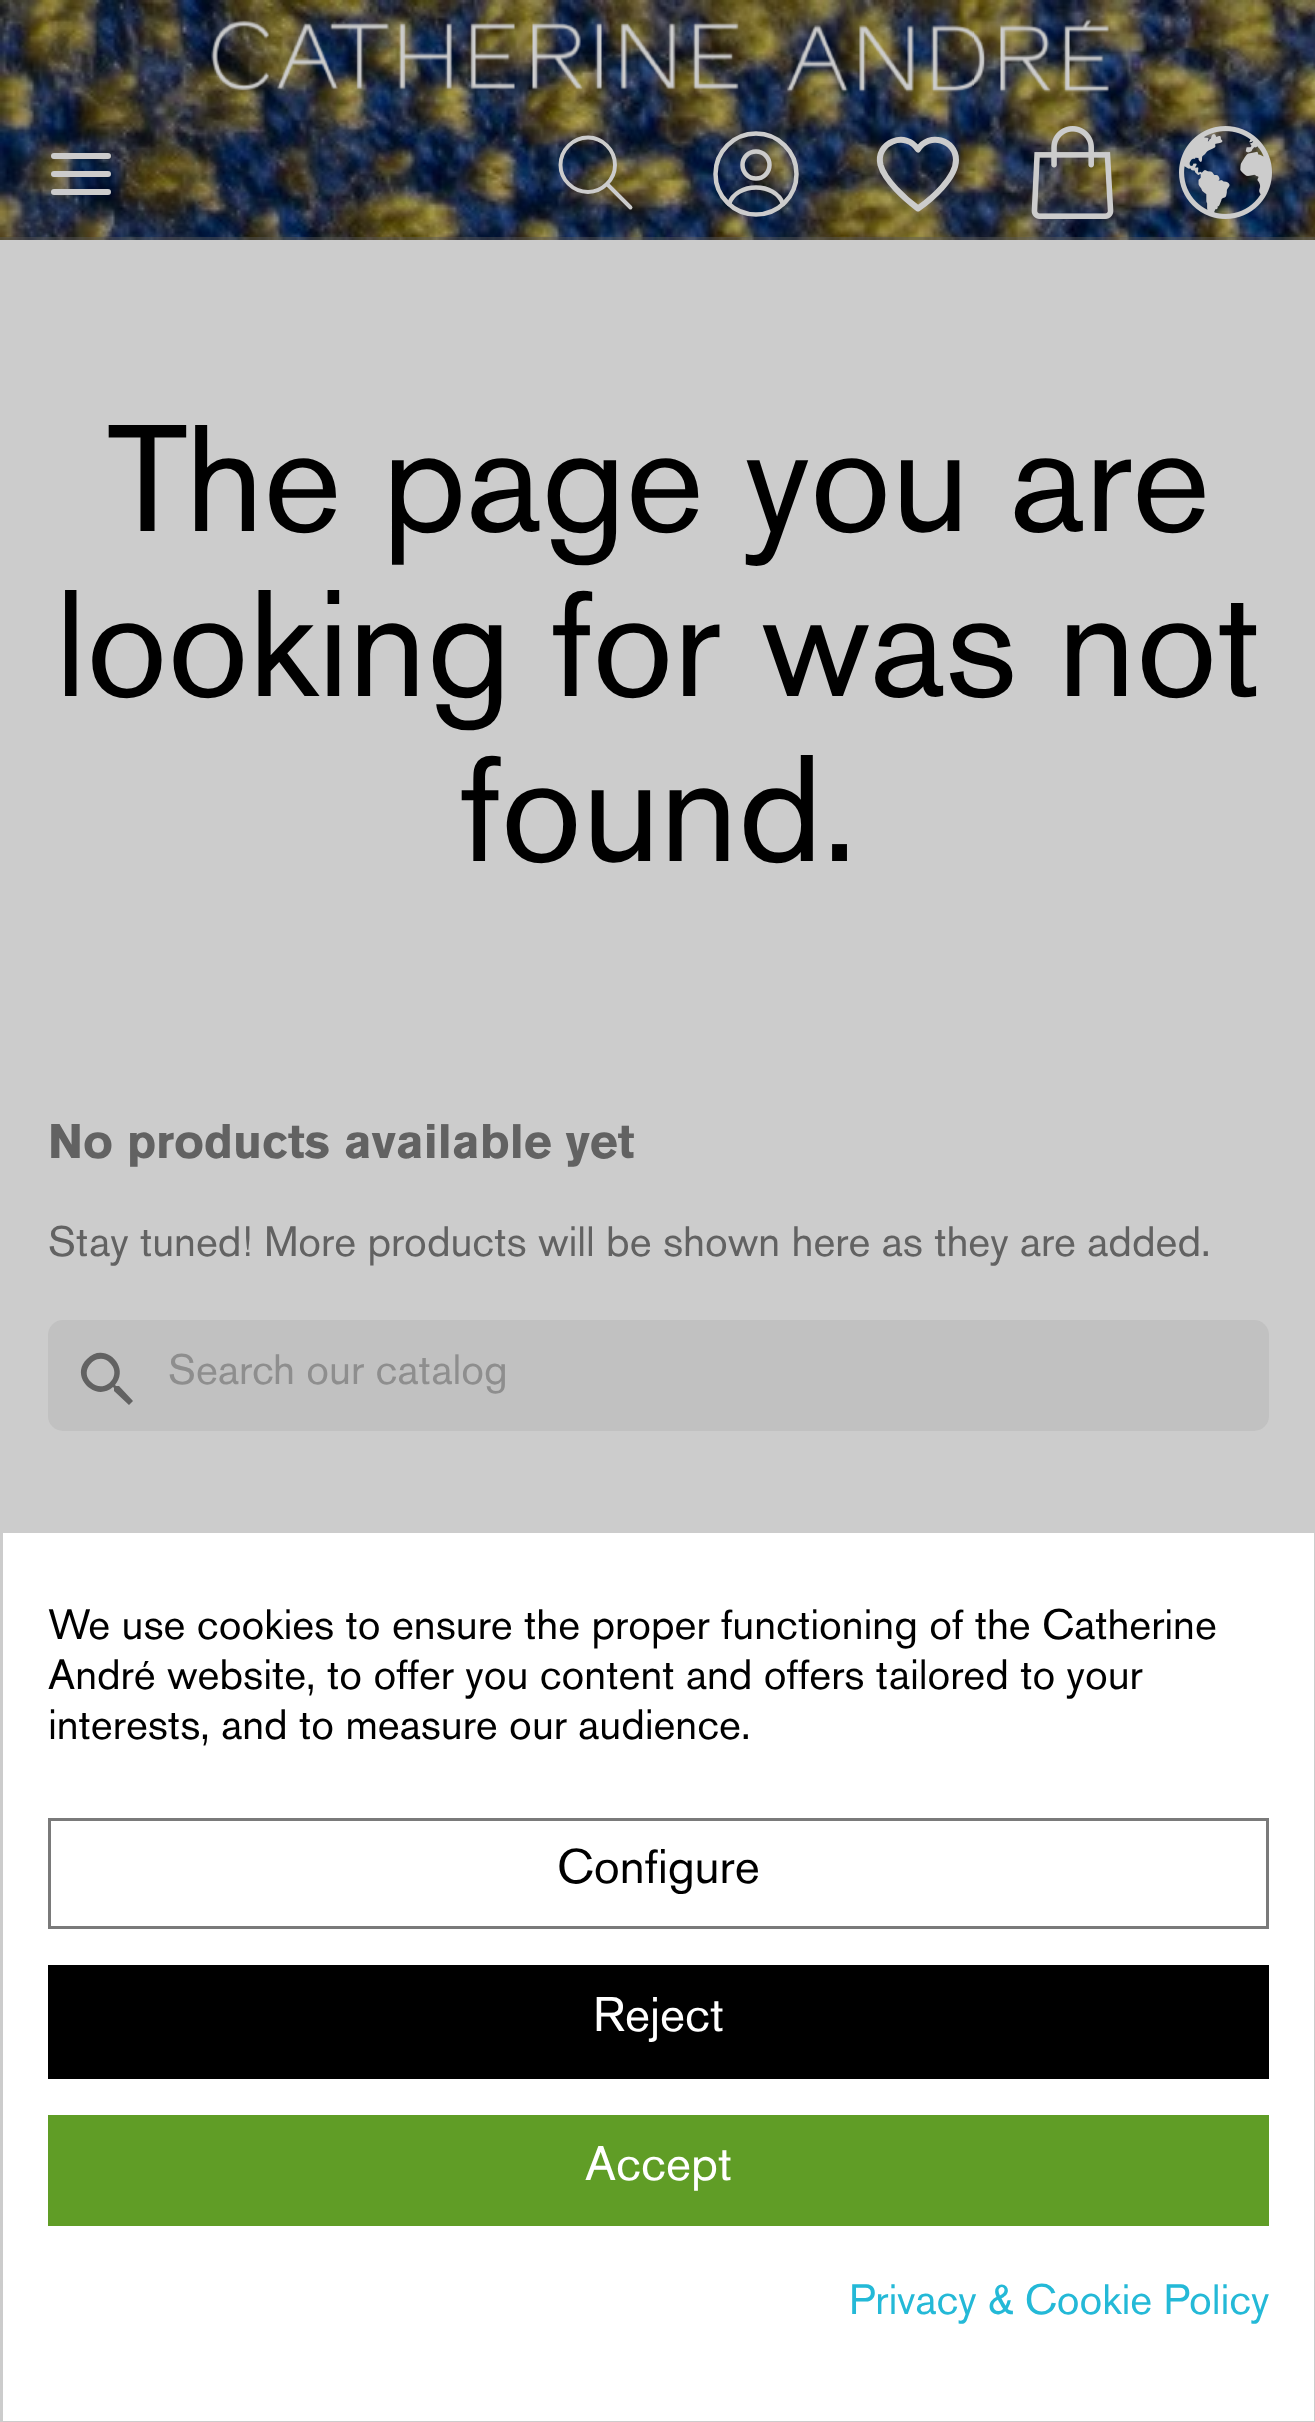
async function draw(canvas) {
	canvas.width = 1315;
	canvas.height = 2422;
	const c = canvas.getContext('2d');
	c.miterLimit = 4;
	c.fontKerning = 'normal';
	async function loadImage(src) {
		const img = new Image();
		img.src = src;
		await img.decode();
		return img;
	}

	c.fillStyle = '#ccc';
	c.fillRect(0, 0, 1315, 2422);
	c.drawImage(await loadImage('img1.png'), 0, 0, 1315, 240);
	c.fillStyle = '#5a5a5a73';
	c.fillRect(0, 237, 1315, 3);
	c.drawImage(await loadImage('img2.png'), 211, 19, 898, 73);
	c.beginPath();
	c.moveTo(54, 174);
	c.lineTo(108, 174);
	c.moveTo(54, 156);
	c.lineTo(108, 156);
	c.moveTo(54, 192);
	c.lineTo(108, 192);
	c.strokeStyle = '#ccc';
	c.lineWidth = 6;
	c.lineCap = 'round';
	c.lineJoin = 'round';
	c.stroke();
	c.beginPath();
	c.moveTo(607, 184);
	c.lineTo(630.5, 207.5);
	c.moveTo(615, 165);
	c.bezierCurveTo(615, 179.5, 602.5, 192, 588, 192);
	c.bezierCurveTo(573, 192, 560.5, 179.5, 560.5, 165);
	c.bezierCurveTo(560.5, 150, 573, 137.5, 588, 137.5);
	c.bezierCurveTo(602.5, 137.5, 615, 150, 615, 165);
	c.closePath();
	c.lineWidth = 3.9;
	c.stroke();
	c.beginPath();
	c.arc(756, 165, 13.5, 0, 2 * Math.PI);
	c.lineWidth = 4.5;
	c.stroke();
	c.beginPath();
	c.arc(756, 174, 40.5, 0, 2 * Math.PI);
	c.stroke();
	c.beginPath();
	c.moveTo(783, 204);
	c.bezierCurveTo(775.5, 182, 736.5, 182, 729, 204);
	c.lineJoin = 'miter';
	c.stroke();
	c.beginPath();
	c.moveTo(956, 160);
	c.bezierCurveTo(956, 139.5, 928.5, 132, 918, 149.5);
	c.bezierCurveTo(906, 130, 875, 142.5, 880.5, 165);
	c.bezierCurveTo(883, 174, 889.5, 182, 896, 189);
	c.bezierCurveTo(902.5, 196, 910, 202.5, 918, 208.5);
	c.bezierCurveTo(931.5, 199, 956, 178, 956, 160);
	c.closePath();
	c.lineWidth = 6;
	c.lineJoin = 'round';
	c.stroke();
	c.drawImage(await loadImage('img3.png'), 1031, 126, 83, 93);
	c.drawImage(await loadImage('img4.png'), 1179, 126, 93, 93);
	c.font = '150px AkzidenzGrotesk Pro';
	c.fillStyle = '#000';
	for (const [text, x, y] of [
		['The page you are', 107, 531],
		['looking for was not', 55, 696],
		['found.', 460, 861],
	]) {
		c.fillText(text, x, y);
	}
	c.font = 'bold 48px AkzidenzGrotesk Pro';
	c.fillStyle = '#626262';
	c.fillText('No products available yet', 48, 1158);
	c.font = '42px AkzidenzGrotesk Pro';
	c.fillText('Stay tuned! More products will be shown here as they are added.', 48, 1256);
	c.fillStyle = '#c1c1c1';
	c.beginPath();
	c.roundRect(48, 1320, 1221, 111, 15);
	c.fill();
	c.fillStyle = '#626262';
	c.beginPath();
	c.moveTo(91, 1382);
	c.bezierCurveTo(104, 1395, 123, 1376, 110, 1363);
	c.bezierCurveTo(98, 1350, 78, 1370, 91, 1382);
	c.closePath();
	c.moveTo(119, 1386);
	c.lineTo(133, 1401);
	c.lineTo(129, 1405);
	c.lineTo(114, 1391);
	c.lineTo(114, 1388);
	c.lineTo(113, 1387);
	c.bezierCurveTo(95, 1403, 69, 1376, 87, 1359);
	c.bezierCurveTo(104, 1341, 131, 1366, 115, 1385);
	c.lineTo(116, 1386);
	c.closePath();
	c.fill();
	c.fillStyle = '#8e8e8e';
	c.fillText('Search our catalog', 168, 1384);
	c.fillStyle = '#fff';
	c.fillRect(3, 1533, 1311, 888);
	c.fillStyle = '#000';
	for (const [text, x, y] of [
		['We use cookies to ensure the proper functioning of the Catherine', 48, 1639],
		['André website, to offer you content and offers tailored to your', 48, 1689],
		['interests, and to measure our audience.', 48, 1739],
	]) {
		c.fillText(text, x, y);
	}
	c.strokeStyle = '#7a7a7a';
	c.lineWidth = 3;
	c.lineJoin = 'miter';
	c.strokeRect(49.5, 1819.5, 1218, 108);
	c.font = '48px AkzidenzGrotesk Pro';
	c.fillText('Configure', 557, 1883);
	c.fillRect(48, 1965, 1221, 114);
	c.fillStyle = '#fff';
	c.fillText('Reject', 593, 2031);
	c.fillStyle = '#609d26';
	c.fillRect(48, 2115, 1221, 111);
	c.fillStyle = '#fff';
	c.fillText('Accept', 585, 2180);
	c.font = '42px AkzidenzGrotesk Pro';
	c.fillStyle = '#24b9d7';
	c.fillText('Privacy & Cookie Policy', 849, 2314);
}

draw(document.querySelector('canvas'));
